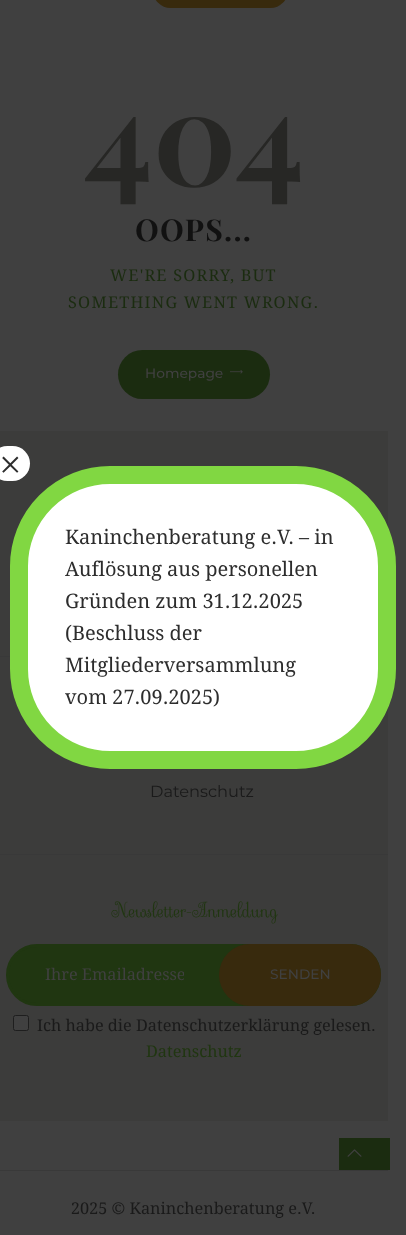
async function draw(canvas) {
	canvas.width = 406;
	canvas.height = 1235;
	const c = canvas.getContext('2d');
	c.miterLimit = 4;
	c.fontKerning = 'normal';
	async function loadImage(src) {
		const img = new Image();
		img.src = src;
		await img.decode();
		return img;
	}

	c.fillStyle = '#404040';
	c.fillRect(0, 0, 406, 1235);
	c.fillStyle = '#382a0d';
	c.beginPath();
	c.roundRect(153, -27, 135, 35, 26.5);
	c.fill();
	c.font = 'bold 130px Playfair Display';
	c.fillStyle = '#272725';
	c.fillText('404', 84, 186);
	c.letterSpacing = '1.25px';
	c.font = 'bold 30px Playfair Display';
	c.fillStyle = '#111';
	c.fillText('OOPS...', 135, 241);
	c.font = '16.25px Droid Serif';
	c.fillStyle = '#1b2c10';
	c.fillText('WE\'RE SORRY, BUT', 110, 281);
	c.fillText('SOMETHING WENT WRONG.', 68, 308);
	c.beginPath();
	c.roundRect(118, 350, 152, 49, 24.5);
	c.fill();
	c.letterSpacing = '0px';
	c.font = '500 13.75px Montserrat';
	c.fillStyle = '#404040';
	c.fillText('Homepage', 145, 378);
	c.drawImage(await loadImage('img1.png'), 230, 370, 13, 4);
	c.fillStyle = '#3c3c3b';
	c.fillRect(0, 431, 388, 690);
	c.fillStyle = '#393939';
	c.fillRect(0, 656, 10, 1);
	c.font = '16.25px Montserrat';
	c.fillStyle = '#1a1a1a';
	c.fillText('Datenschutz', 150, 797);
	c.fillStyle = '#393939';
	c.fillRect(0, 854, 388, 1);
	c.font = '18.75px Sevillana';
	c.fillStyle = '#203611';
	c.fillText('Newsletter-Anmeldung', 111, 917);
	c.beginPath();
	c.roundRect(7.5, 945.5, 372, 59, 29.5);
	c.fill();
	c.strokeStyle = '#203611';
	c.lineWidth = 3;
	c.stroke();
	c.save();
	c.beginPath();
	c.rect(45, 965, 139, 19);
	c.clip();
	c.font = '16.25px Droid Serif';
	c.fillStyle = '#404040';
	c.fillText('Ihre Emailadresse', 45, 980);
	c.restore();
	c.fillStyle = '#382a0d';
	c.beginPath();
	c.roundRect(219, 944, 162, 62, 31);
	c.fill();
	c.font = '500 13.75px Montserrat';
	c.fillStyle = '#404040';
	c.fillText('SENDEN', 270, 979);
	c.beginPath();
	c.roundRect(13.5, 1015.5, 15, 15, 2);
	c.fill();
	c.strokeStyle = '#1e1e1e';
	c.lineWidth = 1;
	c.stroke();
	c.font = '16.25px Droid Serif';
	c.fillStyle = '#1a1a1a';
	c.fillText('Ich habe die Datenschutzerklärung gelesen.', 37, 1031);
	c.fillStyle = '#203611';
	c.fillText('Datenschutz', 146, 1057);
	c.fillStyle = '#393939';
	c.fillRect(0, 1170, 388, 1);
	c.fillStyle = '#1a1a1a';
	c.fillText('2025 © Kaninchenberatung e.V.', 71, 1214);
	c.fillStyle = '#fff';
	c.beginPath();
	c.roundRect(19, 475, 368, 285, 91);
	c.fill();
	c.strokeStyle = '#81d742';
	c.lineWidth = 18;
	c.stroke();
	c.beginPath();
	c.roundRect(-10, 446, 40, 35, 17.5);
	c.fill();
	c.font = '40px Liberation Serif';
	c.fillStyle = '#2d2d2d';
	c.fillText('×', -1, 478);
	c.font = '20px Droid Serif';
	for (const [text, x, y] of [
		['Kaninchenberatung e.V. – in', 65, 544],
		['Auflösung aus personellen', 65, 576],
		['Gründen zum 31.12.2025', 65, 608],
		['(Beschluss der', 65, 640],
		['Mitgliederversammlung', 65, 672],
		['vom 27.09.2025)', 65, 704],
	]) {
		c.fillText(text, x, y);
	}
	c.fillStyle = '#1b2c10';
	c.fillRect(339, 1138, 51, 32);
	c.drawImage(await loadImage('img2.png'), 347, 1149, 15, 8);
}

draw(document.querySelector('canvas'));
